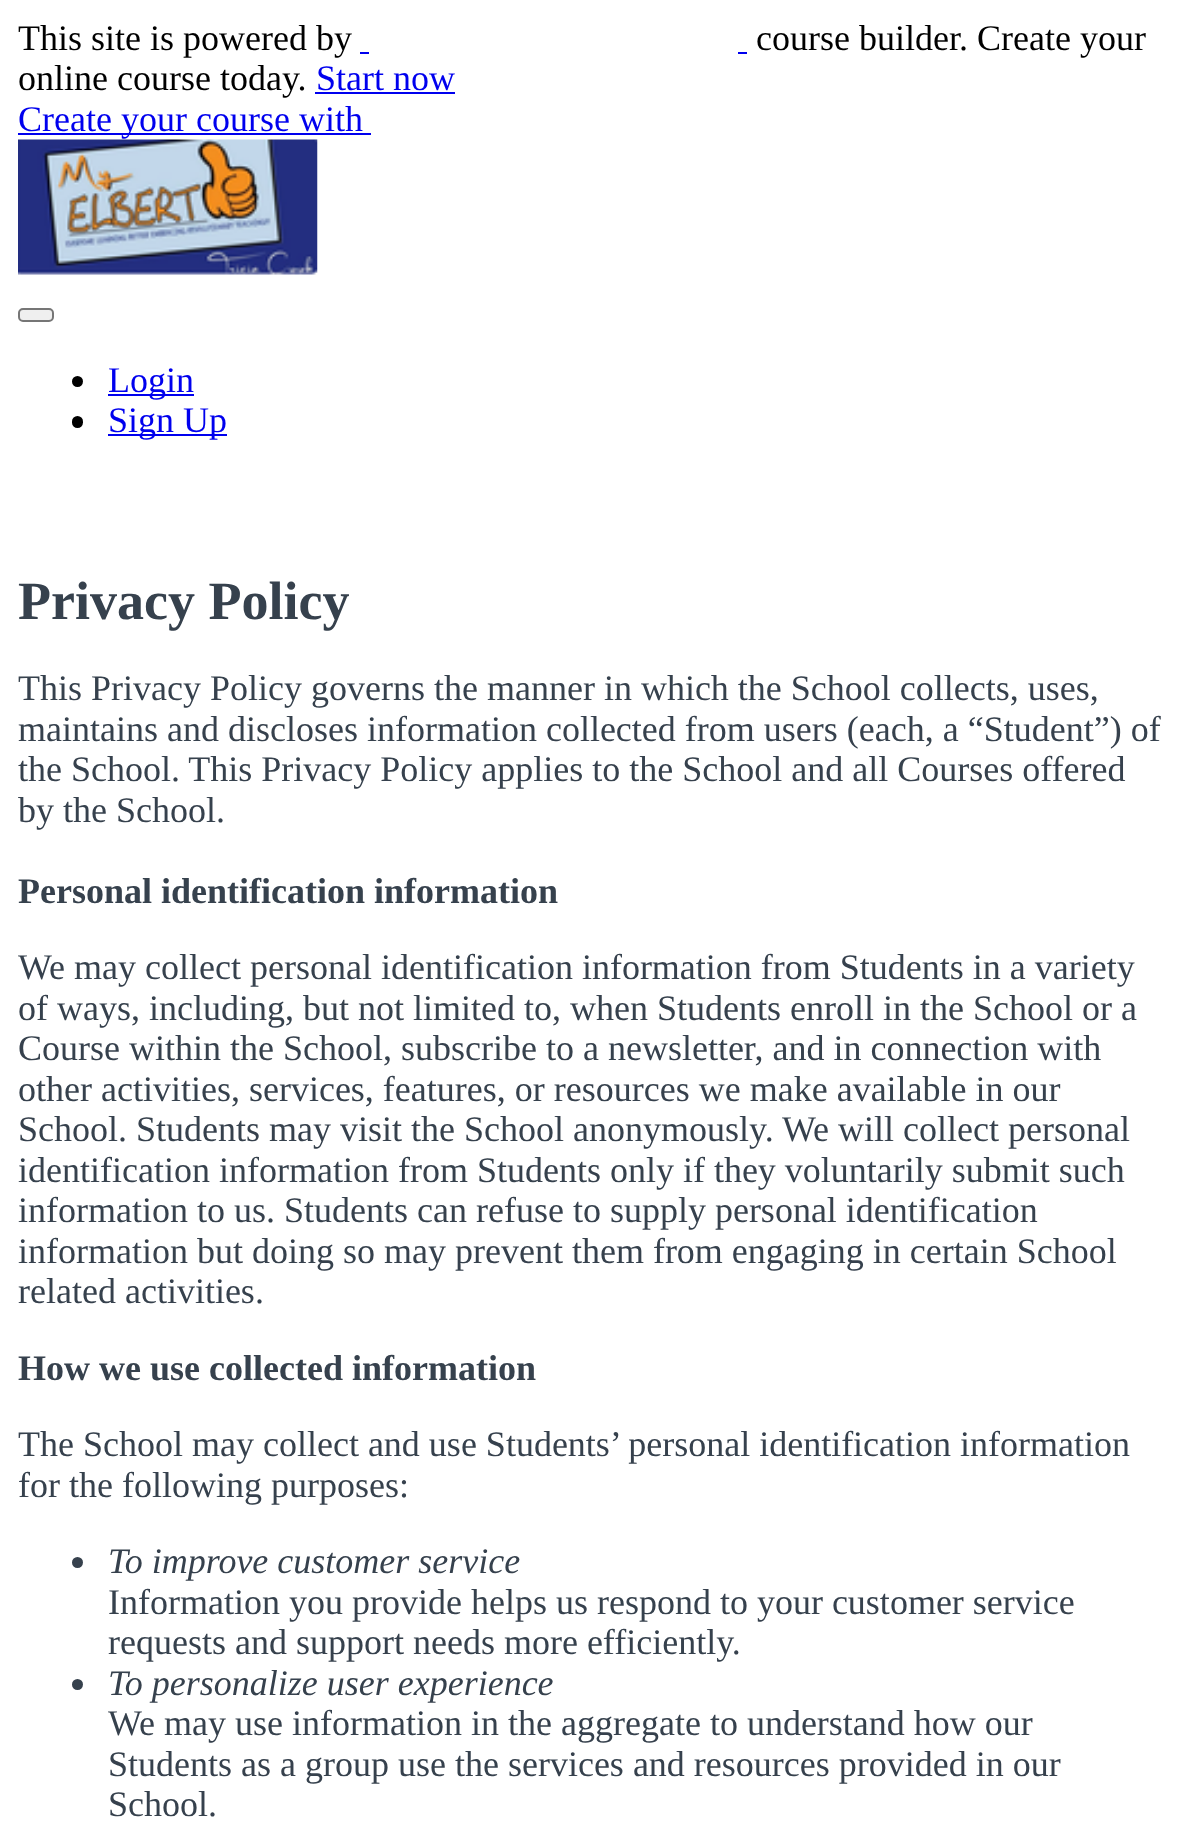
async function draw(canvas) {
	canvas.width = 1177;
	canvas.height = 1828;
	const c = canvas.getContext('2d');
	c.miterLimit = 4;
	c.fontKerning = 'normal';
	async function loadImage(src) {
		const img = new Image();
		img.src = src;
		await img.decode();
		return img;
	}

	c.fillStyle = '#fff';
	c.fillRect(0, 0, 1177, 1828);
	c.font = '36px Liberation Serif';
	c.fillStyle = '#000';
	c.fillText('This site is powered by', 18, 50);
	c.fillStyle = '#00e';
	c.fillRect(360, 52, 9, 2);
	c.fillRect(738, 52, 9, 2);
	c.fillStyle = '#000';
	c.fillText('course builder. Create your', 756, 50);
	c.fillText('online course today.', 18, 90);
	c.fillStyle = '#00e';
	c.fillText('Start now', 316, 90);
	c.fillRect(315, 92, 140, 2);
	c.fillRect(18, 133, 353, 2);
	c.fillText('Create your course with', 18, 131);
	c.drawImage(await loadImage('img1.png'), 18, 139, 300, 136);
	c.fillStyle = '#efefef';
	c.beginPath();
	c.roundRect(19, 309, 34, 12, 4);
	c.fill();
	c.strokeStyle = '#767676';
	c.lineWidth = 2;
	c.stroke();
	c.fillStyle = '#000';
	c.beginPath();
	c.arc(77.5, 381.5, 5.5, 0, 2 * Math.PI);
	c.fill();
	c.fillStyle = '#00e';
	c.fillRect(108, 394, 86, 2);
	c.fillText('Login', 108, 392);
	c.fillStyle = '#000';
	c.beginPath();
	c.roundRect(72, 416, 11, 12, 5.5);
	c.fill();
	c.fillStyle = '#00e';
	c.fillRect(108, 434, 119, 2);
	c.fillText('Sign Up', 108, 432);
	c.font = 'bold 54px Liberation Serif';
	c.fillStyle = '#36414d';
	c.fillText('Privacy Policy', 18, 619);
	c.font = '36px Liberation Serif';
	for (const [text, x, y] of [
		['This Privacy Policy governs the manner in which the School collects, uses,', 18, 700],
		['maintains and discloses information collected from users (each, a “Student”) of', 18, 741],
		['the School. This Privacy Policy applies to the School and all Courses offered', 18, 781],
		['by the School.', 18, 822],
	]) {
		c.fillText(text, x, y);
	}
	c.font = 'bold 36px Liberation Serif';
	c.fillText('Personal identification information', 18, 903);
	c.font = '36px Liberation Serif';
	for (const [text, x, y] of [
		['We may collect personal identification information from Students in a variety', 18, 979],
		['of ways, including, but not limited to, when Students enroll in the School or a', 18, 1020],
		['Course within the School, subscribe to a newsletter, and in connection with', 18, 1060],
		['other activities, services, features, or resources we make available in our', 18, 1101],
		['School. Students may visit the School anonymously. We will collect personal', 18, 1141],
		['identification information from Students only if they voluntarily submit such', 18, 1182],
		['information to us. Students can refuse to supply personal identification', 18, 1222],
		['information but doing so may prevent them from engaging in certain School', 18, 1263],
		['related activities.', 18, 1303],
	]) {
		c.fillText(text, x, y);
	}
	c.font = 'bold 36px Liberation Serif';
	c.fillText('How we use collected information', 18, 1380);
	c.font = '36px Liberation Serif';
	c.fillText('The School may collect and use Students’ personal identification information', 18, 1456);
	c.fillText('for the following purposes:', 18, 1497);
	c.beginPath();
	c.arc(77.5, 1562.5, 5.5, 0, 2 * Math.PI);
	c.fill();
	c.font = 'italic 36px Liberation Serif';
	c.fillText('To improve customer service', 108, 1573);
	c.font = '36px Liberation Serif';
	c.fillText('Information you provide helps us respond to your customer service', 108, 1614);
	c.fillText('requests and support needs more efficiently.', 108, 1654);
	c.beginPath();
	c.arc(77.5, 1684.5, 5.5, 0, 2 * Math.PI);
	c.fill();
	c.font = 'italic 36px Liberation Serif';
	c.fillText('To personalize user experience', 108, 1695);
	c.font = '36px Liberation Serif';
	for (const [text, x, y] of [
		['We may use information in the aggregate to understand how our', 108, 1735],
		['Students as a group use the services and resources provided in our', 108, 1776],
		['School.', 108, 1816],
	]) {
		c.fillText(text, x, y);
	}
}

draw(document.querySelector('canvas'));
